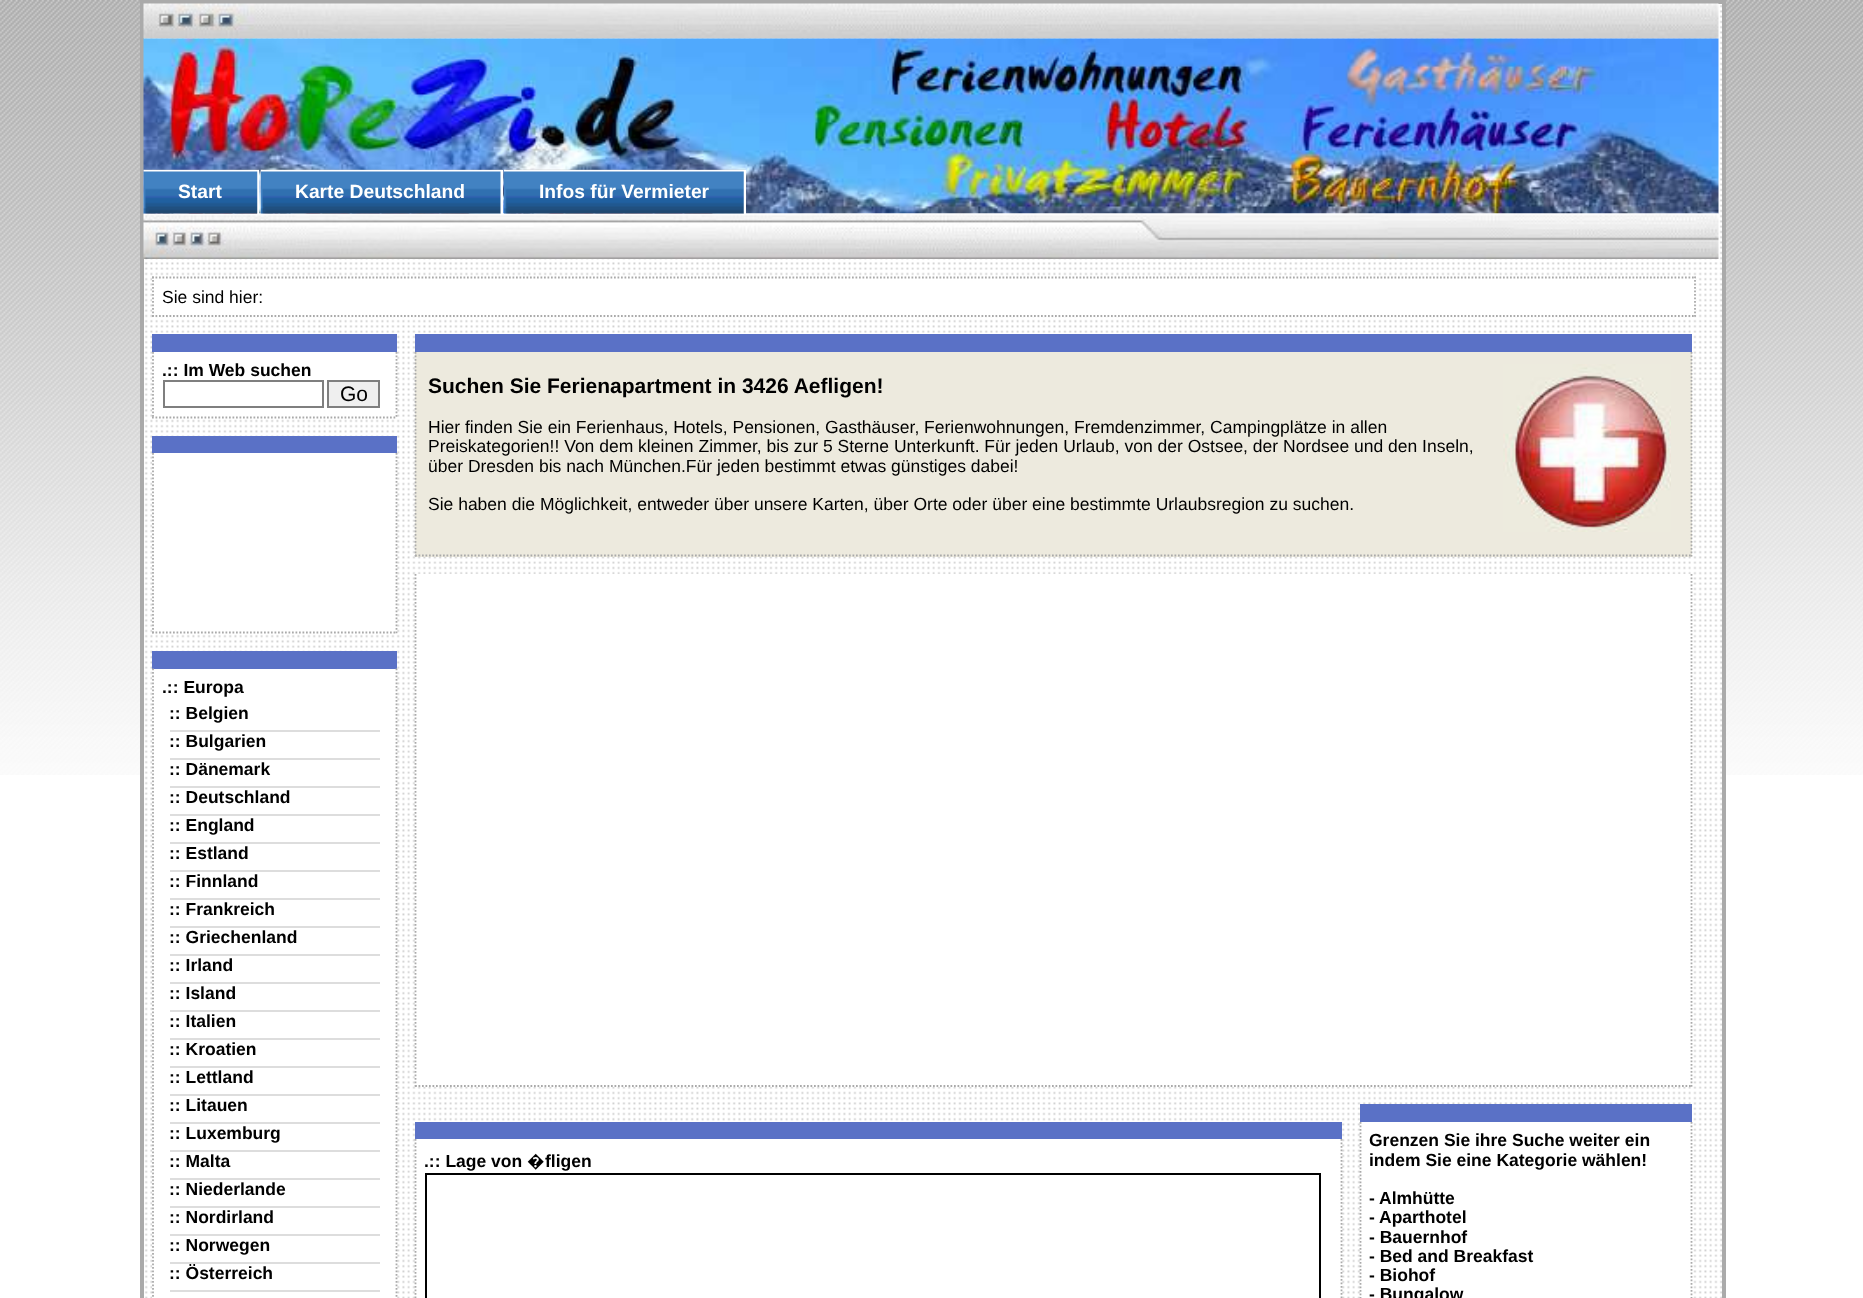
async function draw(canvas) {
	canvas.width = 1863;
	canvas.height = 1298;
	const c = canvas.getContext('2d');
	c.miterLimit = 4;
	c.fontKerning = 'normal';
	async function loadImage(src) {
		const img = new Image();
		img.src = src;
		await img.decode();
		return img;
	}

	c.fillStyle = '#fff';
	c.fillRect(0, 0, 1863, 1298);
	c.drawImage(await loadImage('img1.png'), 0, 0, 1863, 775);
	c.drawImage(await loadImage('img2.png'), 144, 4, 1578, 1294);
	c.strokeStyle = '#aaa';
	c.lineWidth = 4;
	c.strokeRect(142, 2, 1582, 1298);
	c.drawImage(await loadImage('img3.png'), 143, 3, 1576, 36);
	c.drawImage(await loadImage('img4.png'), 143, 38, 1576, 176);
	c.drawImage(await loadImage('img11.png'), 143, 213, 1576, 46);
	c.drawImage(await loadImage('img5.png'), 143, 169, 116, 45);
	c.fillRect(144, 170, 115, 2);
	c.fillRect(257, 170, 2, 44);
	c.drawImage(await loadImage('img6.png'), 143, 171, 115, 43);
	c.font = 'bold 19.25px Liberation Sans';
	c.fillText('Start', 178, 198);
	c.drawImage(await loadImage('img7.png'), 260, 169, 243, 45);
	c.fillRect(261, 170, 241, 2);
	c.fillRect(501, 170, 2, 44);
	c.drawImage(await loadImage('img8.png'), 260, 171, 241, 43);
	c.fillText('Karte Deutschland', 295, 198);
	c.drawImage(await loadImage('img9.png'), 504, 169, 242, 45);
	c.fillRect(504, 170, 242, 2);
	c.fillRect(744, 170, 2, 44);
	c.drawImage(await loadImage('img10.png'), 504, 171, 240, 43);
	c.fillText('Infos für Vermieter', 539, 198);
	c.fillRect(152, 277, 1544, 40);
	c.beginPath();
	c.moveTo(152, 277.5);
	c.lineTo(1696, 277.5);
	c.lineWidth = 1.8;
	c.setLineDash([1.75, 1.75]);
	c.stroke();
	c.beginPath();
	c.moveTo(1695, 276.5);
	c.lineTo(1695, 317);
	c.stroke();
	c.beginPath();
	c.moveTo(152, 316);
	c.lineTo(1696, 316);
	c.stroke();
	c.beginPath();
	c.moveTo(153, 276.5);
	c.lineTo(153, 317);
	c.stroke();
	c.font = '17.5px Liberation Sans';
	c.fillStyle = '#000';
	c.fillText('Sie sind hier:', 162, 303);
	c.fillStyle = '#5a71c6';
	c.fillRect(152, 334, 245, 18);
	c.fillStyle = '#fff';
	c.fillRect(152, 352, 245, 65);
	c.beginPath();
	c.moveTo(396.5, 352);
	c.lineTo(396.5, 418);
	c.stroke();
	c.beginPath();
	c.moveTo(152, 417.5);
	c.lineTo(397, 417.5);
	c.stroke();
	c.beginPath();
	c.moveTo(153, 352);
	c.lineTo(153, 418);
	c.stroke();
	c.font = 'bold 17.5px Liberation Sans';
	c.fillStyle = '#000';
	c.fillText('.:: Im Web suchen', 162, 376);
	c.strokeStyle = '#7f7f7f';
	c.lineWidth = 2;
	c.setLineDash([]);
	c.strokeRect(164, 381, 159, 26);
	c.fillStyle = '#efefef';
	c.beginPath();
	c.rect(328, 381, 51, 26);
	c.fill();
	c.stroke();
	c.font = '21px Liberation Sans';
	c.fillStyle = '#000';
	c.fillText('Go', 340, 401);
	c.fillStyle = '#5a71c6';
	c.fillRect(152, 436, 245, 17);
	c.fillStyle = '#fff';
	c.fillRect(152, 453, 245, 180);
	c.beginPath();
	c.moveTo(396.5, 453);
	c.lineTo(396.5, 633.5);
	c.strokeStyle = '#aaa';
	c.lineWidth = 1.8;
	c.setLineDash([1.75, 1.75]);
	c.stroke();
	c.beginPath();
	c.moveTo(152, 632.5);
	c.lineTo(397, 632.5);
	c.stroke();
	c.beginPath();
	c.moveTo(153, 453);
	c.lineTo(153, 633.5);
	c.stroke();
	c.fillStyle = '#5a71c6';
	c.fillRect(152, 651, 245, 18);
	c.fillStyle = '#fff';
	c.fillRect(152, 671, 245, 627);
	c.beginPath();
	c.moveTo(396.5, 668.5);
	c.lineTo(396.5, 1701);
	c.stroke();
	c.beginPath();
	c.moveTo(153, 668.5);
	c.lineTo(153, 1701);
	c.stroke();
	c.font = 'bold 17.5px Liberation Sans';
	c.fillStyle = '#000';
	c.fillText('.:: Europa', 162, 693);
	c.fillStyle = '#ddd';
	c.fillRect(170, 730, 210, 2);
	c.fillStyle = '#000';
	c.fillText(':: Belgien', 169, 719);
	c.fillStyle = '#ddd';
	c.fillRect(170, 758, 210, 2);
	c.fillStyle = '#000';
	c.fillText(':: Bulgarien', 169, 747);
	c.fillStyle = '#ddd';
	c.fillRect(170, 786, 210, 2);
	c.fillStyle = '#000';
	c.fillText(':: Dänemark', 169, 775);
	c.fillStyle = '#ddd';
	c.fillRect(170, 814, 210, 2);
	c.fillStyle = '#000';
	c.fillText(':: Deutschland', 169, 803);
	c.fillStyle = '#ddd';
	c.fillRect(170, 842, 210, 2);
	c.fillStyle = '#000';
	c.fillText(':: England', 169, 831);
	c.fillStyle = '#ddd';
	c.fillRect(170, 870, 210, 2);
	c.fillStyle = '#000';
	c.fillText(':: Estland', 169, 859);
	c.fillStyle = '#ddd';
	c.fillRect(170, 898, 210, 2);
	c.fillStyle = '#000';
	c.fillText(':: Finnland', 169, 887);
	c.fillStyle = '#ddd';
	c.fillRect(170, 926, 210, 2);
	c.fillStyle = '#000';
	c.fillText(':: Frankreich', 169, 915);
	c.fillStyle = '#ddd';
	c.fillRect(170, 954, 210, 2);
	c.fillStyle = '#000';
	c.fillText(':: Griechenland', 169, 943);
	c.fillStyle = '#ddd';
	c.fillRect(170, 982, 210, 2);
	c.fillStyle = '#000';
	c.fillText(':: Irland', 169, 971);
	c.fillStyle = '#ddd';
	c.fillRect(170, 1010, 210, 2);
	c.fillStyle = '#000';
	c.fillText(':: Island', 169, 999);
	c.fillStyle = '#ddd';
	c.fillRect(170, 1038, 210, 2);
	c.fillStyle = '#000';
	c.fillText(':: Italien', 169, 1027);
	c.fillStyle = '#ddd';
	c.fillRect(170, 1066, 210, 2);
	c.fillStyle = '#000';
	c.fillText(':: Kroatien', 169, 1055);
	c.fillStyle = '#ddd';
	c.fillRect(170, 1094, 210, 2);
	c.fillStyle = '#000';
	c.fillText(':: Lettland', 169, 1083);
	c.fillStyle = '#ddd';
	c.fillRect(170, 1122, 210, 2);
	c.fillStyle = '#000';
	c.fillText(':: Litauen', 169, 1111);
	c.fillStyle = '#ddd';
	c.fillRect(170, 1150, 210, 2);
	c.fillStyle = '#000';
	c.fillText(':: Luxemburg', 169, 1139);
	c.fillStyle = '#ddd';
	c.fillRect(170, 1178, 210, 2);
	c.fillStyle = '#000';
	c.fillText(':: Malta', 169, 1167);
	c.fillStyle = '#ddd';
	c.fillRect(170, 1206, 210, 2);
	c.fillStyle = '#000';
	c.fillText(':: Niederlande', 169, 1195);
	c.fillStyle = '#ddd';
	c.fillRect(170, 1234, 210, 2);
	c.fillStyle = '#000';
	c.fillText(':: Nordirland', 169, 1223);
	c.fillStyle = '#ddd';
	c.fillRect(170, 1262, 210, 2);
	c.fillStyle = '#000';
	c.fillText(':: Norwegen', 169, 1251);
	c.fillStyle = '#ddd';
	c.fillRect(170, 1290, 210, 2);
	c.fillStyle = '#000';
	c.fillText(':: Österreich', 169, 1279);
	c.fillStyle = '#5a71c6';
	c.fillRect(415, 334, 1277, 18);
	c.fillStyle = '#edeade';
	c.fillRect(415, 352, 1277, 205);
	c.beginPath();
	c.moveTo(1691.5, 352);
	c.lineTo(1691.5, 556.5);
	c.stroke();
	c.beginPath();
	c.moveTo(415, 555.5);
	c.lineTo(1692, 555.5);
	c.stroke();
	c.beginPath();
	c.moveTo(415.5, 352);
	c.lineTo(415.5, 556.5);
	c.stroke();
	c.font = 'bold 21px Liberation Sans';
	c.fillStyle = '#000';
	c.fillText('Suchen Sie Ferienapartment in 3426 Aefligen!', 428, 393);
	c.font = '17.5px Liberation Sans';
	for (const [text, x, y] of [
		['Hier finden Sie ein Ferienhaus, Hotels, Pensionen, Gasthäuser, Ferienwohnungen, Fremdenzimmer, Campingplätze in allen', 428, 433],
		['Preiskategorien!! Von dem kleinen Zimmer, bis zur 5 Sterne Unterkunft. Für jeden Urlaub, von der Ostsee, der Nordsee und den Inseln,', 428, 452],
		['über Dresden bis nach München.Für jeden bestimmt etwas günstiges dabei!', 428, 472],
		['Sie haben die Möglichkeit, entweder über unsere Karten, über Orte oder über eine bestimmte Urlaubsregion zu suchen.', 428, 510],
	]) {
		c.fillText(text, x, y);
	}
	c.drawImage(await loadImage('img12.png'), 1503, 364, 168, 168);
	c.fillStyle = '#fff';
	c.fillRect(415, 574, 1276, 513);
	c.beginPath();
	c.moveTo(1691.5, 574);
	c.lineTo(1691.5, 1087);
	c.stroke();
	c.beginPath();
	c.moveTo(415, 1086);
	c.lineTo(1692, 1086);
	c.stroke();
	c.beginPath();
	c.moveTo(415.5, 574);
	c.lineTo(415.5, 1087);
	c.stroke();
	c.fillStyle = '#5a71c6';
	c.fillRect(415, 1122, 927, 17);
	c.fillStyle = '#fff';
	c.fillRect(415, 1139, 927, 159);
	c.beginPath();
	c.moveTo(1341.5, 1139);
	c.lineTo(1341.5, 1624);
	c.stroke();
	c.beginPath();
	c.moveTo(415.5, 1139);
	c.lineTo(415.5, 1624);
	c.stroke();
	c.font = 'bold 17.5px Liberation Sans';
	c.fillStyle = '#000';
	c.fillText('.:: Lage von', 424, 1167);
	c.font = 'bold 17.5px Noto Sans';
	c.fillText('�', 527, 1167);
	c.font = 'bold 17.5px Liberation Sans';
	c.fillText('fligen', 545, 1167);
	c.strokeStyle = '#000';
	c.lineWidth = 2;
	c.setLineDash([]);
	c.strokeRect(426, 1174, 894, 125);
	c.fillStyle = '#5a71c6';
	c.fillRect(1360, 1104, 332, 18);
	c.fillStyle = '#fff';
	c.fillRect(1360, 1123, 331, 175);
	c.beginPath();
	c.moveTo(1691.5, 1122);
	c.lineTo(1691.5, 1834);
	c.strokeStyle = '#aaa';
	c.lineWidth = 1.8;
	c.setLineDash([1.75, 1.75]);
	c.stroke();
	c.beginPath();
	c.moveTo(1360.5, 1122);
	c.lineTo(1360.5, 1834);
	c.stroke();
	c.fillStyle = '#000';
	for (const [text, x, y] of [
		['Grenzen Sie ihre Suche weiter ein', 1369, 1146],
		['indem Sie eine Kategorie wählen!', 1369, 1166],
		['-', 1369, 1204],
		['Almhütte', 1379, 1204],
		['-', 1369, 1223],
		['Aparthotel', 1379, 1223],
		['- Bauernhof', 1369, 1243],
		['- Bed and Breakfast', 1369, 1262],
		['- Biohof', 1369, 1281],
		['- Bungalow', 1369, 1300],
	]) {
		c.fillText(text, x, y);
	}
}

draw(document.querySelector('canvas'));
